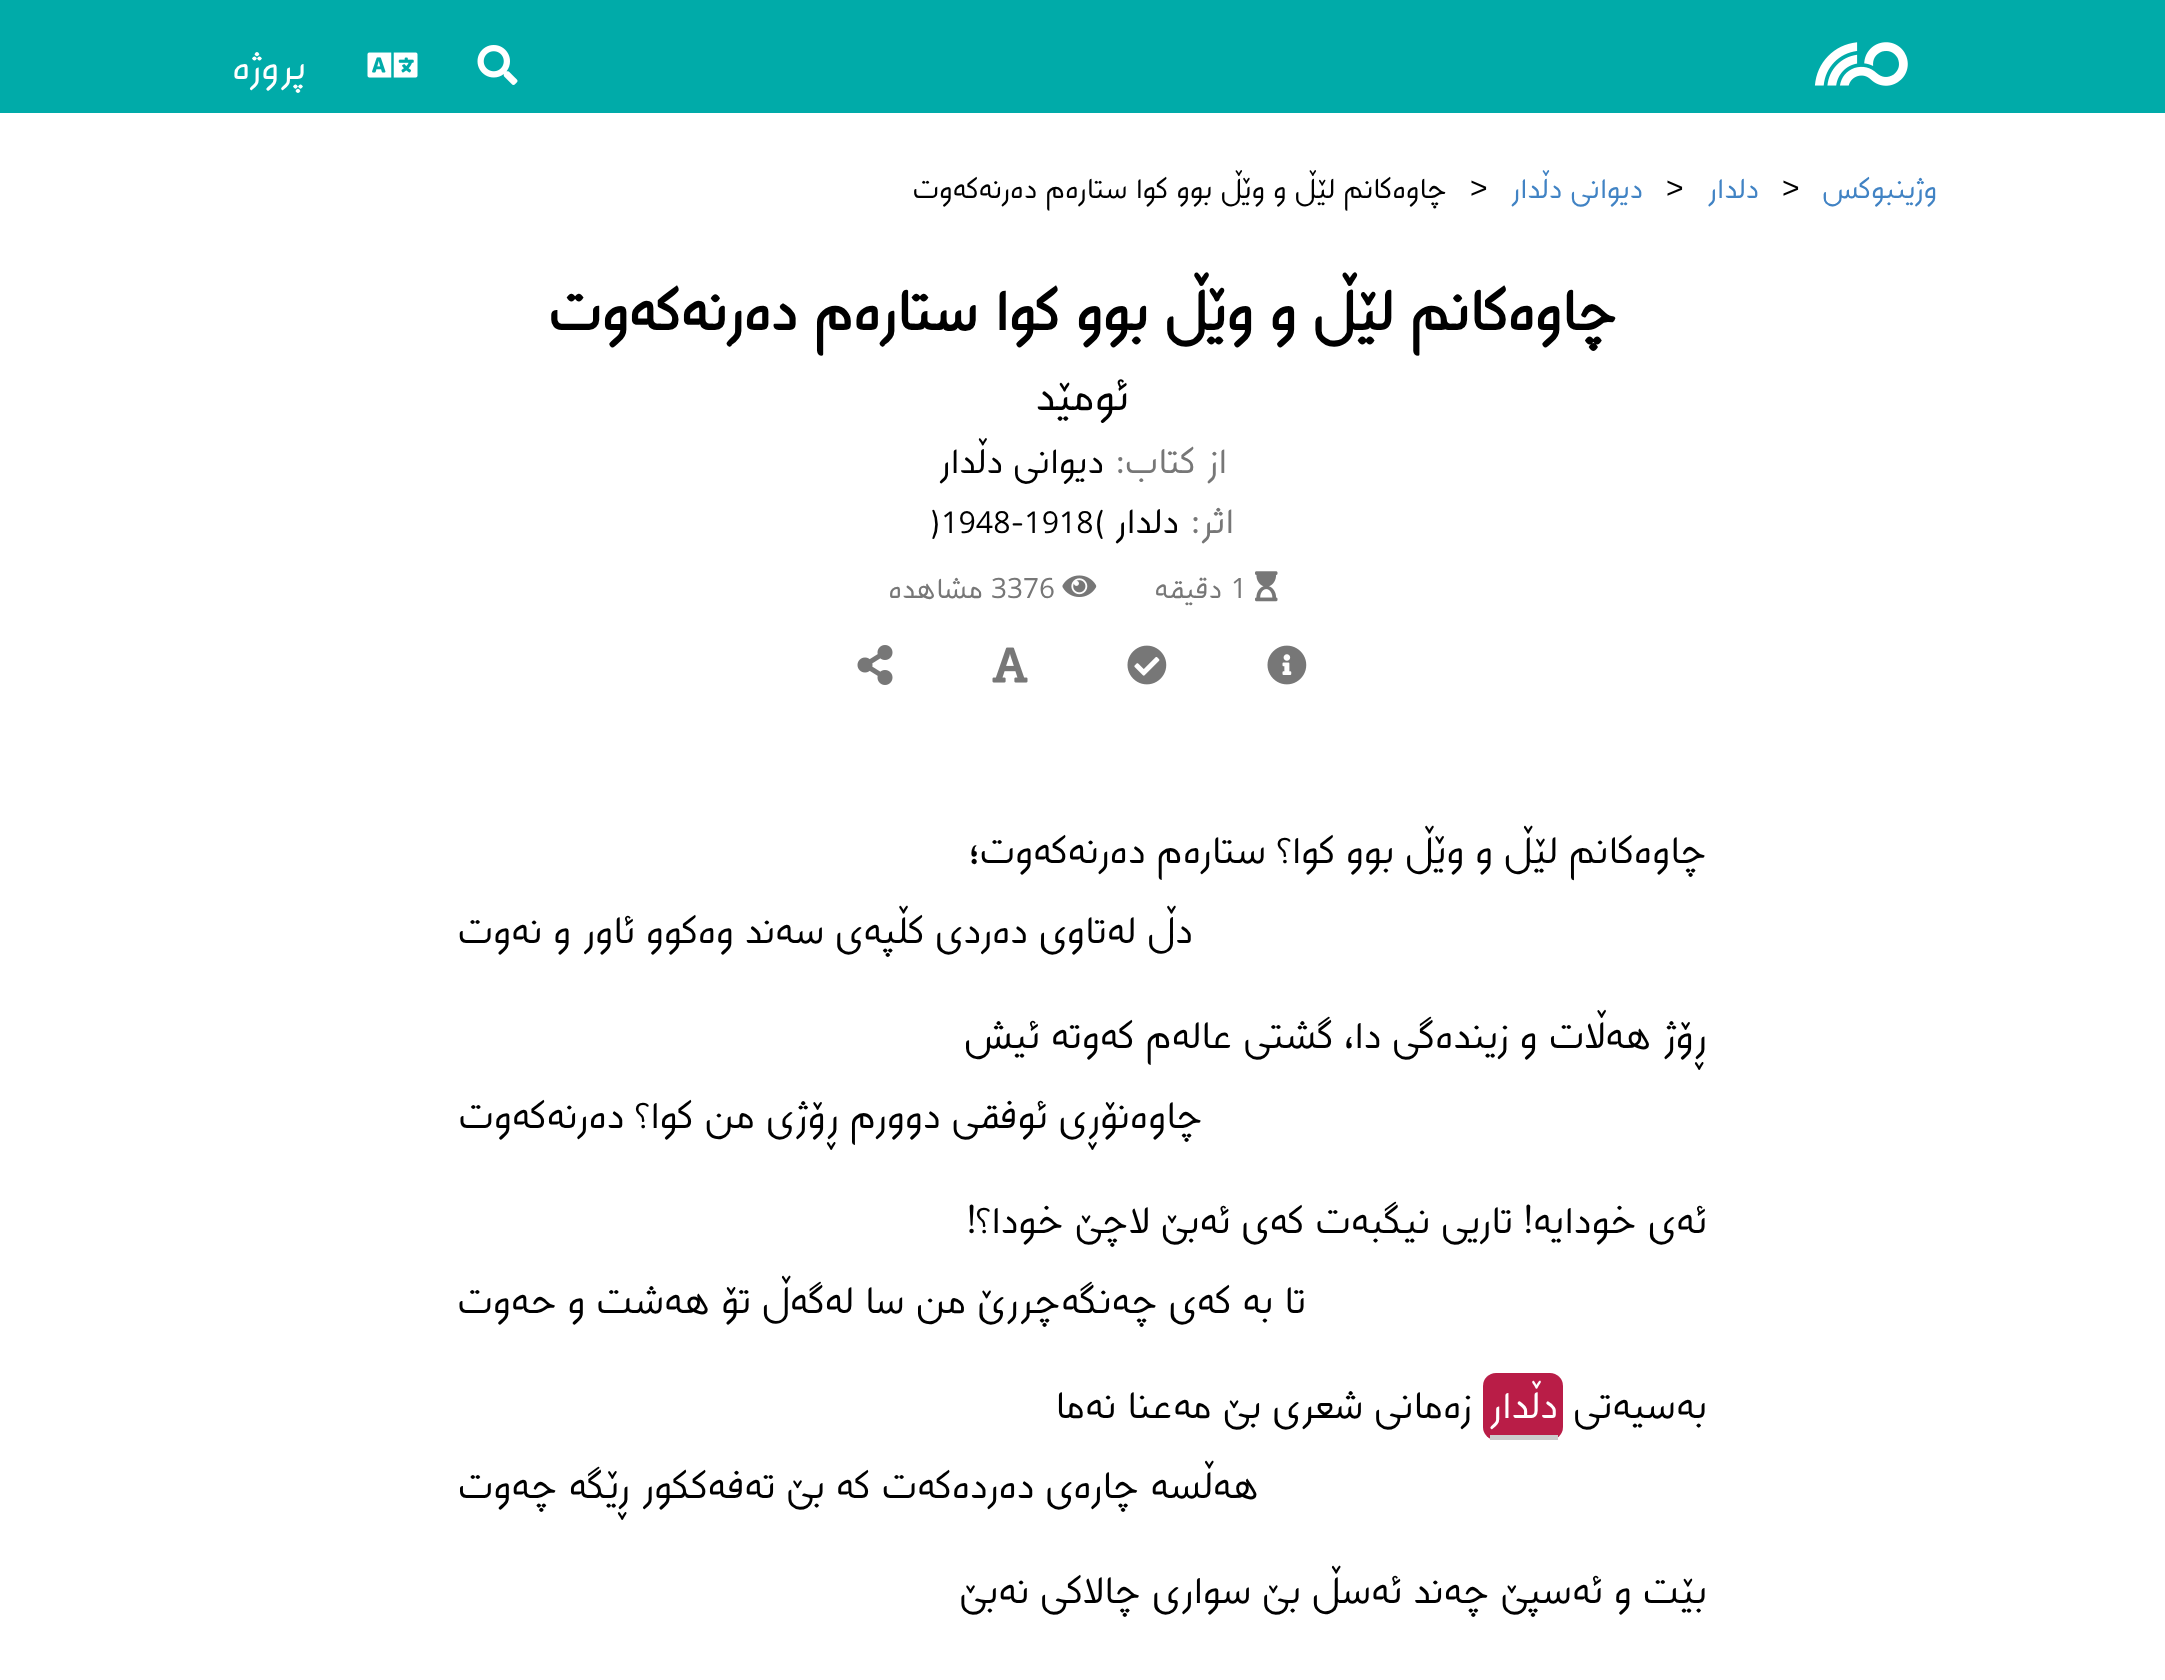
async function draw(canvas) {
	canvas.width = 2165;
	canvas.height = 1680;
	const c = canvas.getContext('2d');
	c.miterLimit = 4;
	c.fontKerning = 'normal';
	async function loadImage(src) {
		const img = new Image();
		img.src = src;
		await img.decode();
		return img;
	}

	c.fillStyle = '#fff';
	c.fillRect(0, 0, 2165, 1680);
	c.fillStyle = '#00aba9';
	c.fillRect(0, 0, 2165, 113);
	c.drawImage(await loadImage('img1.png'), 1814, 42, 94, 44);
	c.drawImage(await loadImage('img2.png'), 477, 45, 41, 40);
	c.drawImage(await loadImage('img3.png'), 367, 52, 51, 26);
	c.direction = 'rtl';
	c.font = '40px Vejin';
	c.fillStyle = '#fff';
	c.fillText('پروژه', 306, 79);
	c.font = '30px Vejin';
	c.fillStyle = '#4183c4';
	c.fillText('وژینبوکس', 1937, 198);
	c.direction = 'ltr';
	c.font = '30px Liberation Sans';
	c.fillStyle = '#000';
	c.fillText('>', 1782, 198);
	c.direction = 'rtl';
	c.font = '30px Vejin';
	c.fillStyle = '#4183c4';
	c.fillText('دلدار', 1759, 198);
	c.direction = 'ltr';
	c.font = '30px Liberation Sans';
	c.fillStyle = '#000';
	c.fillText('>', 1666, 198);
	c.direction = 'rtl';
	c.font = '30px Vejin';
	c.fillStyle = '#4183c4';
	c.fillText('دیوانی دڵدار', 1643, 198);
	c.direction = 'ltr';
	c.font = '30px Liberation Sans';
	c.fillStyle = '#000';
	c.fillText('>', 1470, 198);
	c.direction = 'rtl';
	c.font = '30px Vejin';
	c.fillText('چاوەکانم لێڵ و وێڵ بوو کوا ستارەم دەرنەکەوت', 1447, 198);
	c.font = 'bold 60px Vejin';
	c.fillText('چاوەکانم لێڵ و وێڵ بوو کوا ستارەم دەرنەکەوت', 1617, 330);
	c.font = '45px Vejin';
	c.fillText('ئومێد', 1129, 410);
	c.font = '37.5px Vejin';
	c.fillStyle = '#777';
	c.fillText('از کتاب:', 1227, 473);
	c.fillStyle = '#000';
	c.fillText('دیوانی دڵدار', 1104, 473);
	c.fillStyle = '#777';
	c.fillText('اثر:', 1234, 533);
	c.fillStyle = '#000';
	c.fillText('دلدار', 1179, 533);
	c.direction = 'ltr';
	c.font = '32.5px Vejin';
	c.fillText(')1948-1918(', 931, 533);
	c.drawImage(await loadImage('img4.png'), 1255, 571, 23, 31);
	c.font = '30px Vejin';
	c.fillStyle = '#777';
	c.fillText('1', 1231, 598);
	c.direction = 'rtl';
	c.fillText('دقیقه', 1222, 598);
	c.drawImage(await loadImage('img5.png'), 1062, 575, 35, 22);
	c.direction = 'ltr';
	c.fillText('3376', 991, 598);
	c.direction = 'rtl';
	c.fillText('مشاهده', 983, 598);
	c.drawImage(await loadImage('img6.png'), 1267, 645, 40, 40);
	c.drawImage(await loadImage('img7.png'), 1127, 645, 40, 40);
	c.drawImage(await loadImage('img8.png'), 992, 647, 36, 36);
	c.drawImage(await loadImage('img9.png'), 857, 645, 36, 40);
	c.font = '40px Vejin';
	c.fillStyle = '#000';
	for (const [text, x, y] of [
		['چاوەکانم لێڵ و وێڵ بوو کوا؟ ستارەم دەرنەکەوت؛', 1707, 863],
		['دڵ لەتاوی دەردی کڵپەی سەند وەکوو ئاور و نەوت', 1193, 943],
		['ڕۆژ هەڵات و زیندەگی دا، گشتی عالەم کەوتە ئیش', 1707, 1048],
		['چاوەنۆڕی ئوفقی دوورم ڕۆژی من کوا؟ دەرنەکەوت', 1203, 1128],
		['ئەی خودایە! تاریی نیگبەت کەی ئەبێ لاچێ خودا؟!', 1707, 1233],
		['تا بە کەی چەنگەچررێ من سا لەگەڵ تۆ هەشت و حەوت', 1306, 1313],
		['بەسیەتی', 1707, 1418],
	]) {
		c.fillText(text, x, y);
	}
	c.fillStyle = '#b91d47';
	c.beginPath();
	c.roundRect(1483, 1373, 80, 67, 13);
	c.fill();
	c.fillStyle = '#fff';
	c.fillText('دڵدار', 1558, 1418);
	c.fillStyle = '#ccc';
	c.fillRect(1490, 1435, 68, 5);
	c.fillStyle = '#000';
	for (const [text, x, y] of [
		['زەمانی شعری بێ مەعنا نەما', 1472, 1418],
		['هەڵسە چارەی دەردەکەت کە بێ تەفەککور ڕێگە چەوت', 1259, 1498],
		['بێت و ئەسپێ چەند ئەسڵ بێ سواری چالاکی نەبێ', 1707, 1603],
	]) {
		c.fillText(text, x, y);
	}
}

draw(document.querySelector('canvas'));
